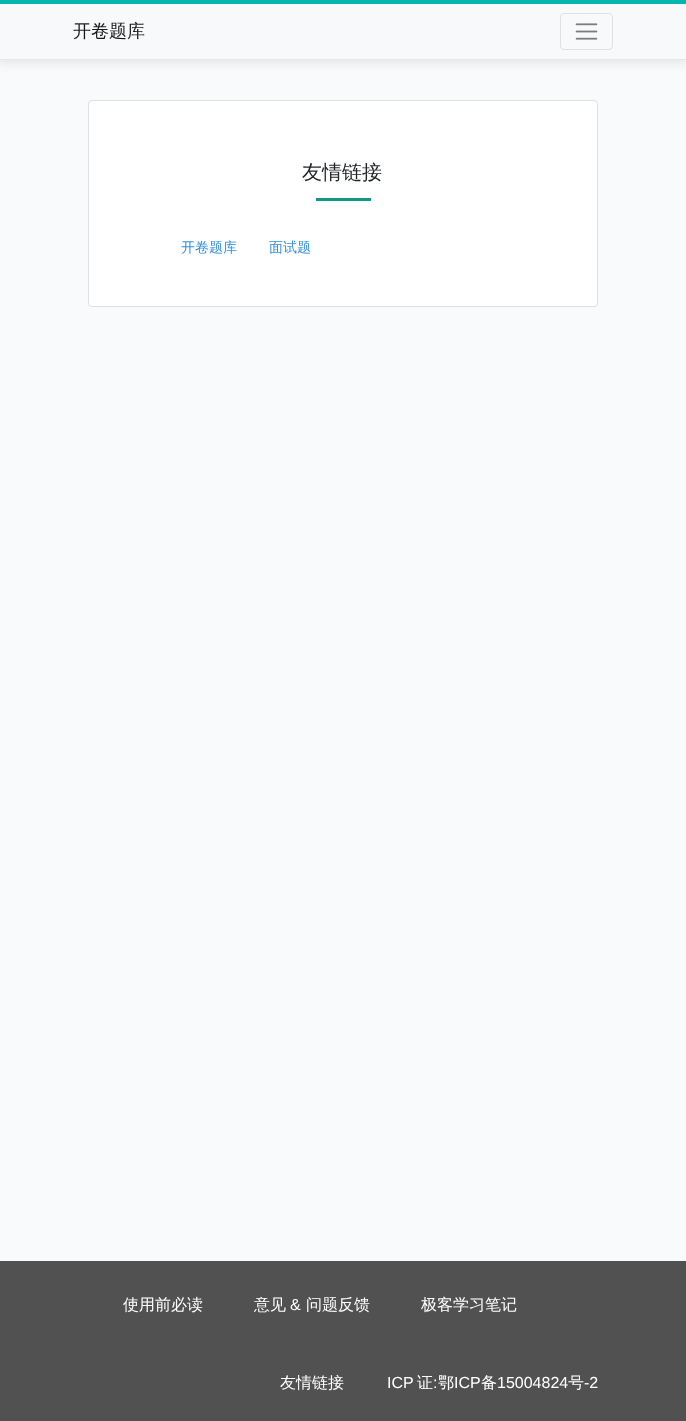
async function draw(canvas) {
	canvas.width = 686;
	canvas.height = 1421;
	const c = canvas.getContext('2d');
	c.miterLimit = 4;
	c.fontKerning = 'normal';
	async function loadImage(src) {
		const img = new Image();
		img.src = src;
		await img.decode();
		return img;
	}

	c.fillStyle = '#f8fafc';
	c.fillRect(0, 0, 686, 1421);
	c.fillStyle = '#2a2a2a1a';
	c.filter = 'blur(5.5px)';
	c.beginPath();
	c.rect(-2, -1, 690, 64);
	c.fill();
	c.filter = 'none';
	for (const [x, y, w, h, color] of [
		[0, 4, 686, 55, '#f8f9fa'],
		[0, 0, 686, 4, '#00b5ad'],
		[0, 59, 686, 1, '#e8e8e8'],
	]) {
		c.fillStyle = color;
		c.fillRect(x, y, w, h);
	}
	c.font = '500 18px WenQuanYi Zen Hei';
	c.fillStyle = '#191919';
	c.fillText('开卷题库', 73, 37);
	c.beginPath();
	c.roundRect(560.5, 13.5, 52, 36, 3.5);
	c.strokeStyle = '#dfe0e1';
	c.stroke();
	c.drawImage(await loadImage('img1.png'), 575, 23, 23, 17);
	c.fillStyle = '#fff';
	c.beginPath();
	c.roundRect(88.5, 100.5, 509, 206, 3.5);
	c.fill();
	c.strokeStyle = '#dfdfdf';
	c.stroke();
	c.fillStyle = '#0f9982';
	c.fillRect(316, 198, 55, 3);
	c.font = '500 20px WenQuanYi Zen Hei';
	c.fillStyle = '#212529';
	c.fillText('友情链接', 302, 179);
	c.font = '500 14px WenQuanYi Zen Hei';
	c.fillStyle = '#3490dc';
	c.fillText('开卷题库', 181, 252);
	c.fillText('面试题', 269, 252);
	c.fillStyle = '#515151';
	c.fillRect(0, 1261, 686, 160);
	c.font = '500 16px WenQuanYi Zen Hei';
	c.fillStyle = '#fff';
	c.fillText('使用前必读', 123, 1310);
	c.fillText('意见', 254, 1310);
	c.font = '16px Liberation Sans';
	c.fillText('&', 290, 1310);
	c.font = '500 16px WenQuanYi Zen Hei';
	for (const [text, x, y] of [
		['问题反馈', 306, 1310],
		['极客学习笔记', 421, 1310],
		['友情链接', 280, 1388],
	]) {
		c.fillText(text, x, y);
	}
	c.font = '16px Liberation Sans';
	c.fillText('ICP', 387, 1388);
	c.font = '500 16px WenQuanYi Zen Hei';
	c.fillText('证', 417, 1388);
	c.font = '16px Liberation Sans';
	c.fillText(':', 433, 1388);
	c.font = '500 16px WenQuanYi Zen Hei';
	c.fillText('鄂', 438, 1388);
	c.font = '16px Liberation Sans';
	c.fillText('ICP', 454, 1388);
	c.font = '500 16px WenQuanYi Zen Hei';
	c.fillText('备', 481, 1388);
	c.font = '16px Liberation Sans';
	c.fillText('15004824', 497, 1388);
	c.font = '500 16px WenQuanYi Zen Hei';
	c.fillText('号', 568, 1388);
	c.font = '16px Liberation Sans';
	c.fillText('-2', 584, 1388);
}

draw(document.querySelector('canvas'));
